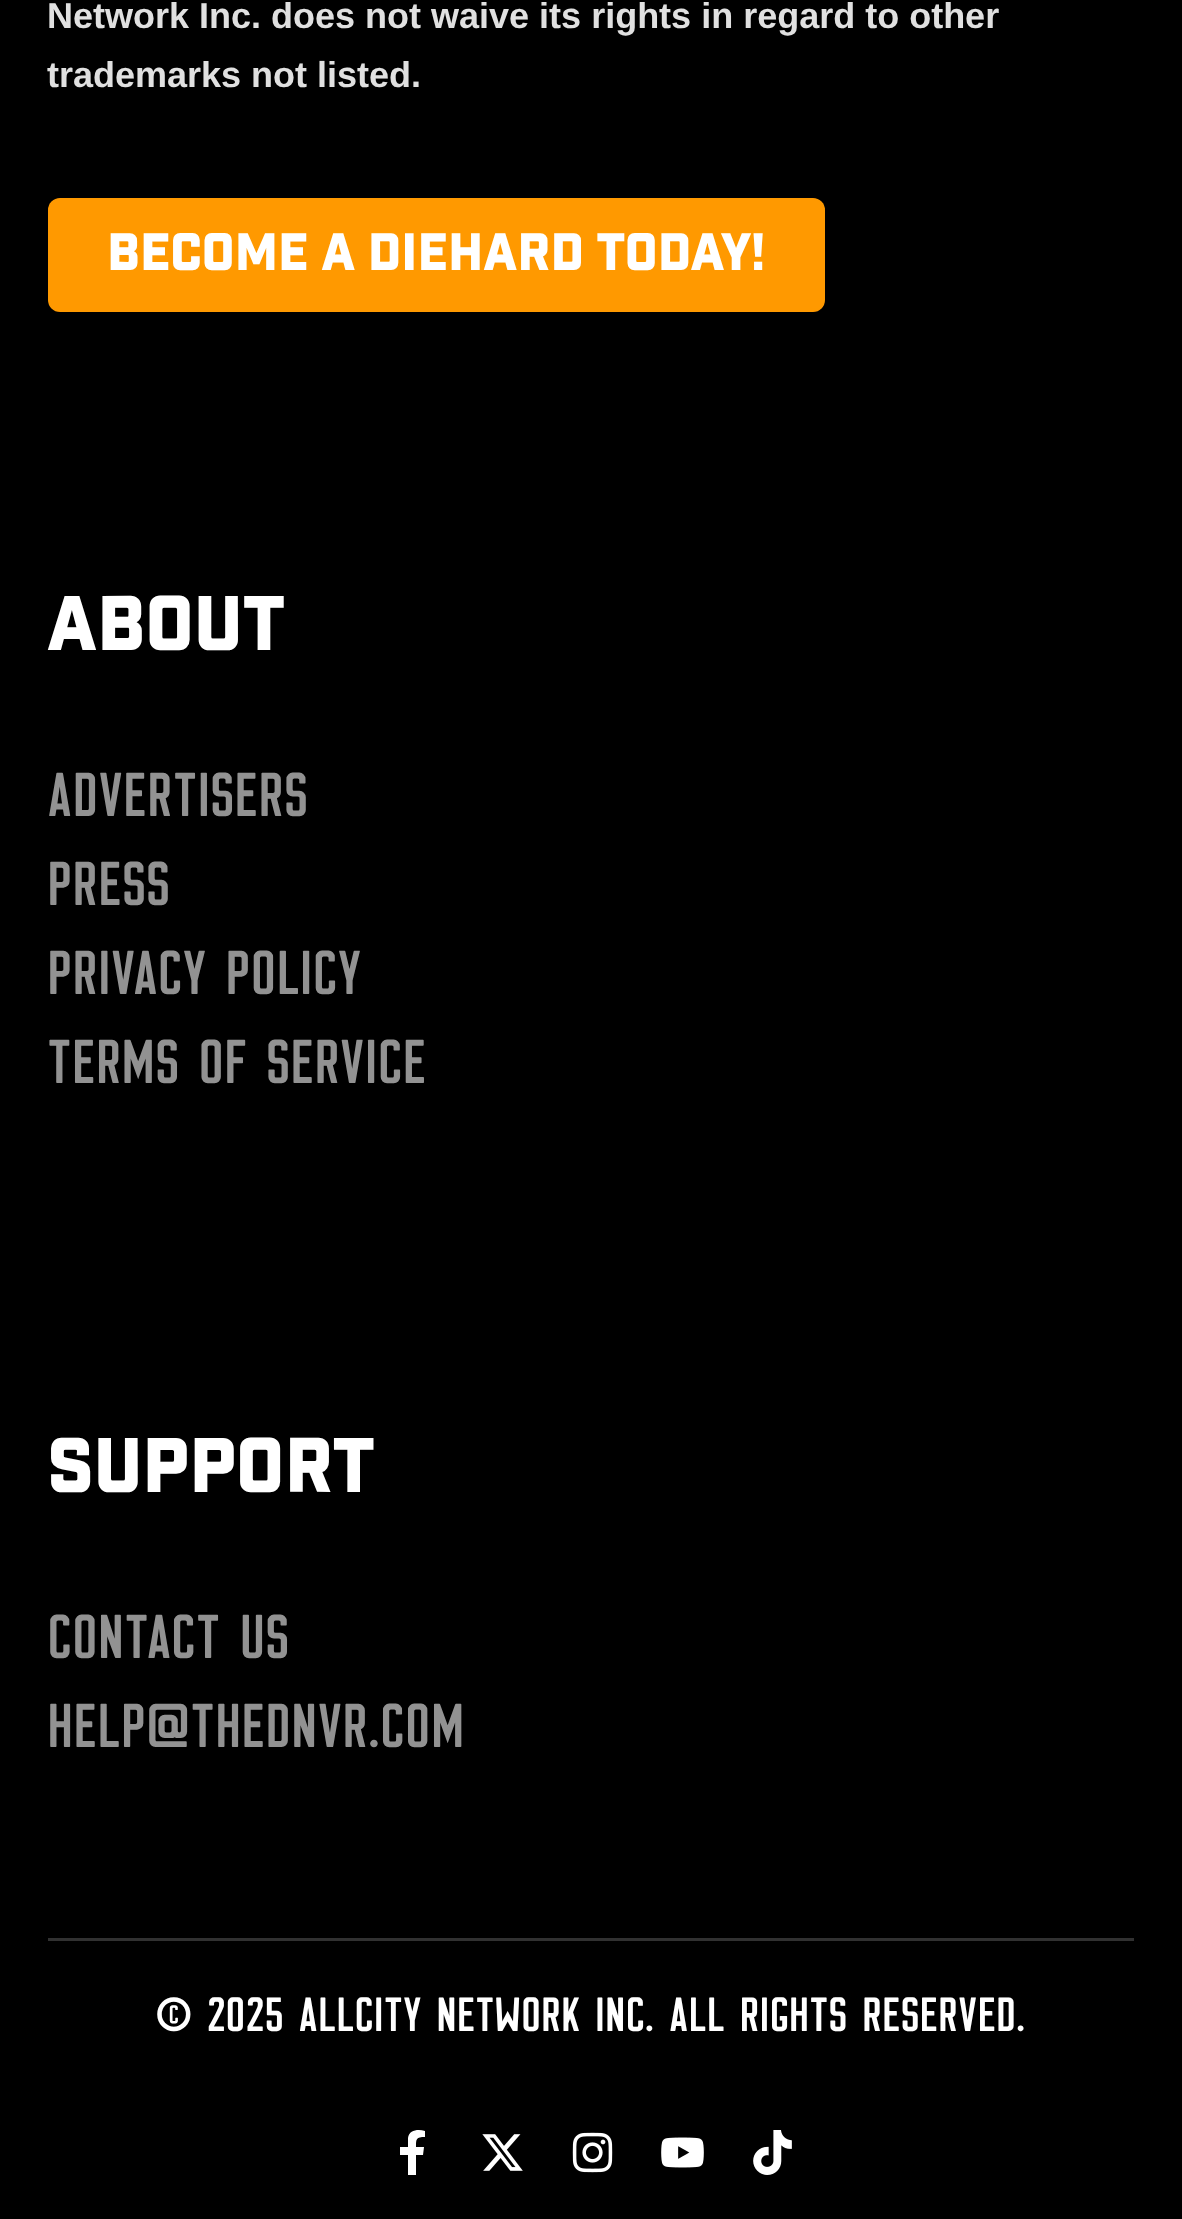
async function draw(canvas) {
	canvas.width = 1182;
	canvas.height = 2219;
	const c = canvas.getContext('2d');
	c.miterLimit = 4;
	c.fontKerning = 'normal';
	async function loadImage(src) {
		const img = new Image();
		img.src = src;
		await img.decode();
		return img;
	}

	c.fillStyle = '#000';
	c.fillRect(0, 0, 1182, 2219);
	c.font = 'bold 36px Liberation Sans';
	c.fillStyle = '#e0e0e0';
	c.fillText('Network Inc. does not waive its rights in regard to other', 47, 28);
	c.fillText('trademarks not listed.', 47, 87);
	c.fillStyle = '#f90';
	c.beginPath();
	c.roundRect(48, 198, 777, 114, 12);
	c.fill();
	c.font = '900 51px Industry';
	c.fillStyle = '#fff';
	c.fillText('BECOME A DIEHARD TODAY!', 107, 270);
	c.font = '900 75px Industry';
	c.fillText('ABOUT', 47, 650);
	c.font = '500 54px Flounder';
	c.fillStyle = '#929292';
	for (const [text, x, y] of [
		['ADVERTISERS', 47, 816],
		['PRESS', 47, 905],
		['PRIVACY POLICY', 47, 994],
		['TERMS OF SERVICE', 47, 1083],
	]) {
		c.fillText(text, x, y);
	}
	c.font = '900 75px Industry';
	c.fillStyle = '#fff';
	c.fillText('SUPPORT', 47, 1492);
	c.font = '500 54px Flounder';
	c.fillStyle = '#929292';
	c.fillText('CONTACT US', 47, 1658);
	c.fillText('HELP@THEDNVR.COM', 47, 1747);
	c.fillStyle = '#313131';
	c.fillRect(48, 1938, 1086, 3);
	c.font = '500 42px Flounder';
	c.fillStyle = '#fff';
	c.fillText('© 2025 ALLCITY Network Inc. All rights reserved.', 156, 2031);
	c.beginPath();
	c.moveTo(423, 2155);
	c.lineTo(424, 2147);
	c.lineTo(416, 2147);
	c.bezierCurveTo(416, 2139, 416, 2137, 425, 2137);
	c.lineTo(425, 2131);
	c.bezierCurveTo(418, 2129, 409, 2130, 408, 2138);
	c.lineTo(408, 2147);
	c.lineTo(400, 2147);
	c.lineTo(400, 2155);
	c.lineTo(408, 2155);
	c.lineTo(408, 2175);
	c.lineTo(416, 2175);
	c.lineTo(416, 2155);
	c.closePath();
	c.fill();
	c.drawImage(await loadImage('img1.png'), 482, 2134, 41, 37);
	c.drawImage(await loadImage('img2.png'), 572, 2132, 41, 41);
	c.drawImage(await loadImage('img3.png'), 661, 2137, 43, 31);
	c.drawImage(await loadImage('img4.png'), 753, 2130, 39, 45);
}

draw(document.querySelector('canvas'));
